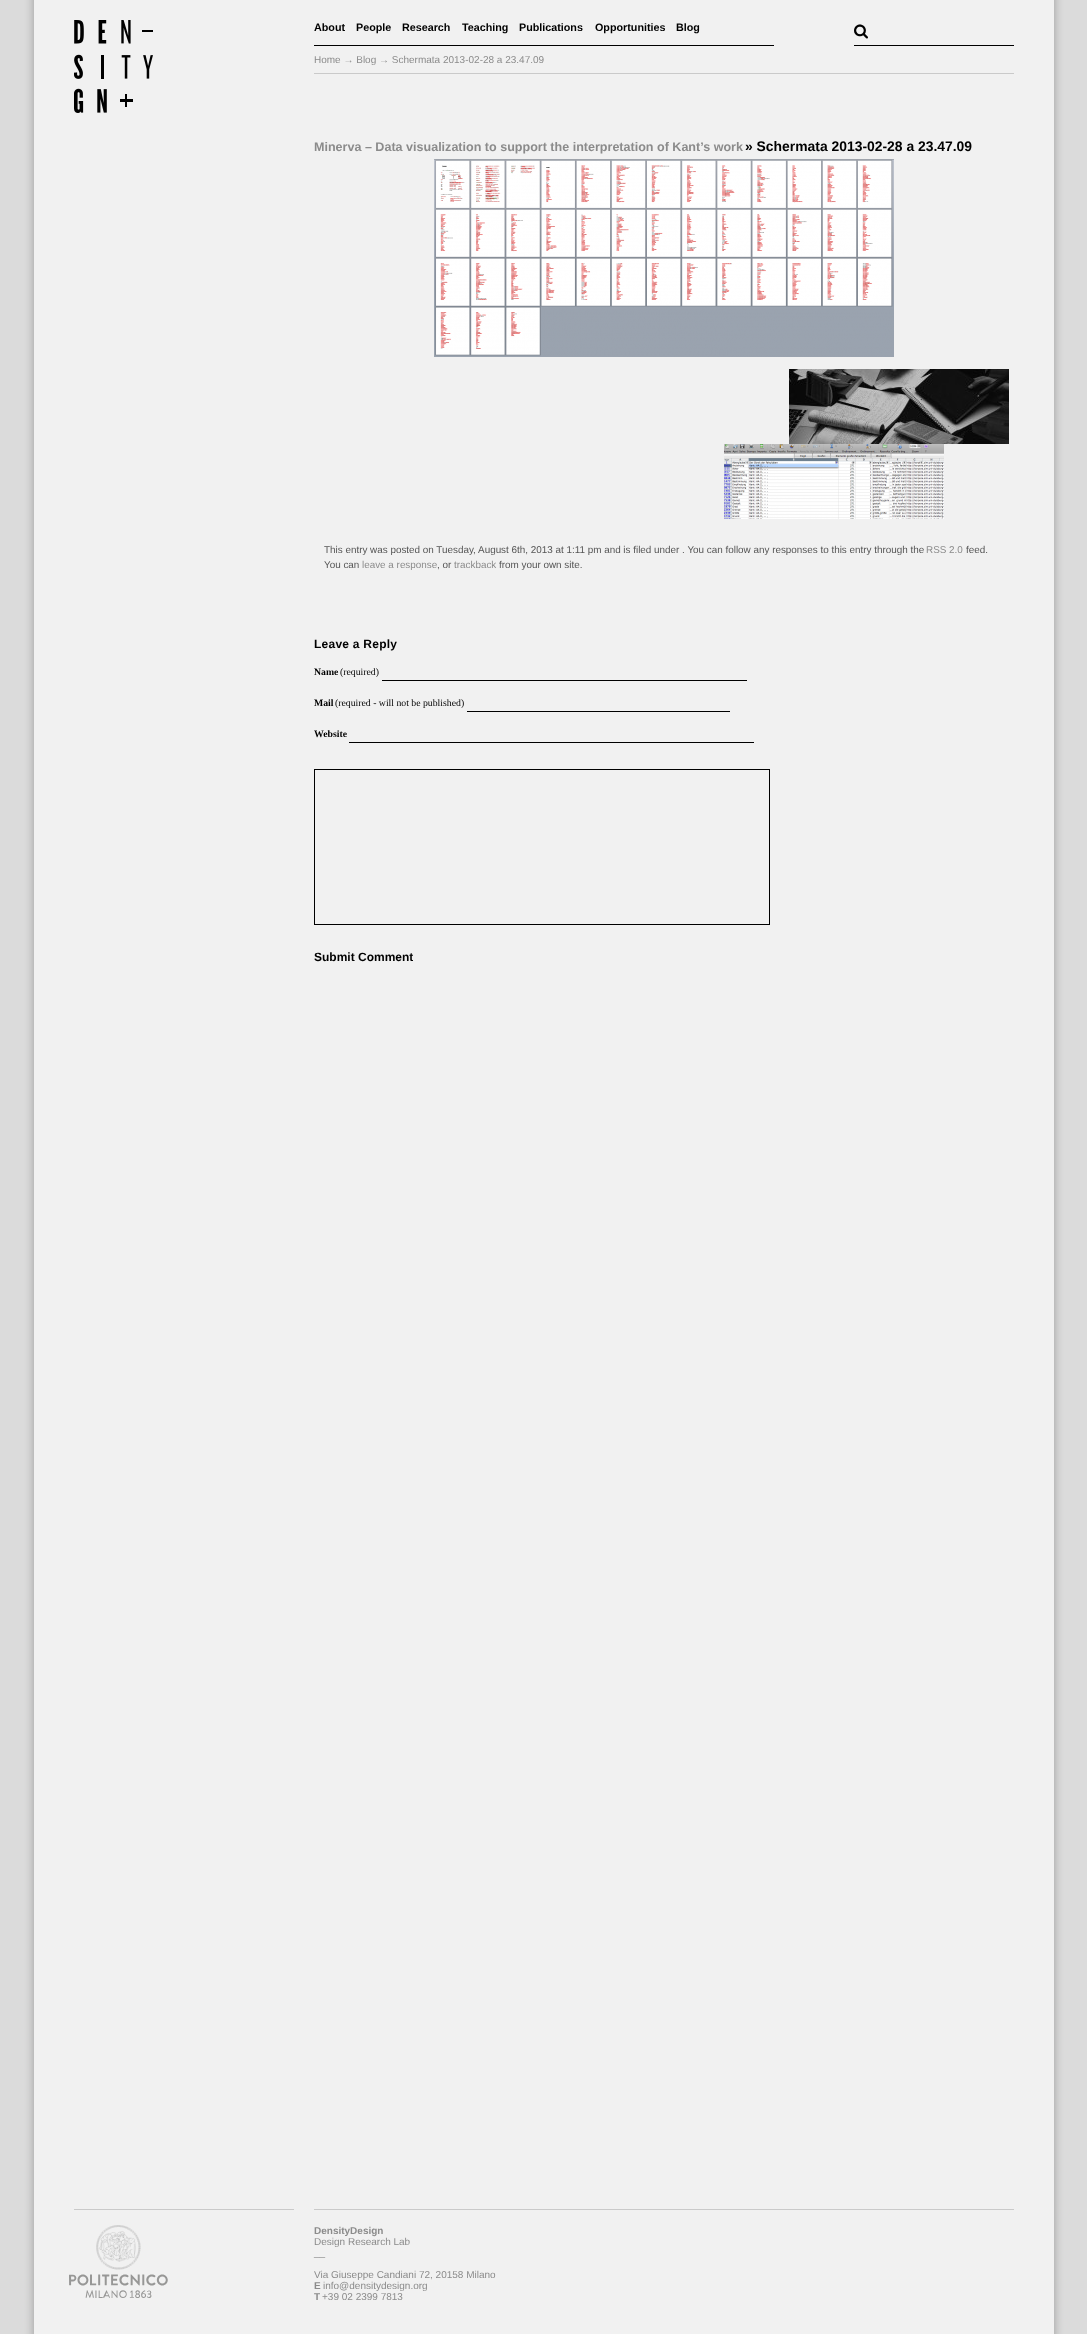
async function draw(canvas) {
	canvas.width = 1087;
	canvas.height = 2334;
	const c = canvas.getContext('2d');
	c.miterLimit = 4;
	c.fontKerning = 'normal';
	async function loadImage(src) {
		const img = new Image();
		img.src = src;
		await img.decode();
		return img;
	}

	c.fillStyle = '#dbdbdb';
	c.fillRect(0, 0, 1087, 2334);
	c.fillStyle = '#0000004d';
	c.filter = 'blur(5px)';
	c.beginPath();
	c.rect(34, -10, 1020, 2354);
	c.fill();
	c.filter = 'none';
	c.fillStyle = '#f1f1f1';
	c.fillRect(34, 0, 1020, 2334);
	c.drawImage(await loadImage('img1.png'), 74, 20, 79, 93);
	c.fillStyle = '#000';
	c.fillRect(314, 45, 460, 1);
	c.font = 'bold 10.75px Liberation Sans';
	for (const [text, x, y] of [
		['About', 314, 31],
		['People', 356, 31],
		['Research', 402, 31],
		['Teaching', 462, 31],
		['Publications', 519, 31],
		['Opportunities', 595, 31],
		['Blog', 676, 31],
	]) {
		c.fillText(text, x, y);
	}
	c.fillRect(854, 45, 160, 1);
	c.drawImage(await loadImage('img2.png'), 854, 24, 14, 15);
	c.fillStyle = '#cacaca';
	c.fillRect(314, 73, 700, 1);
	c.font = '10px Liberation Sans';
	c.fillStyle = '#8b8b8b';
	c.fillText('Home → Blog → Schermata 2013-02-28 a 23.47.09', 314, 63);
	c.font = 'bold 12.55px Liberation Sans';
	c.fillText('Minerva – Data visualization to support the interpretation of Kant’s work', 314, 151);
	c.font = 'bold 13.9px Liberation Sans';
	c.fillStyle = '#000';
	c.fillText('» Schermata 2013-02-28 a 23.47.09', 745, 151);
	c.drawImage(await loadImage('img3.png'), 434, 159, 460, 198);
	c.drawImage(await loadImage('img4.png'), 789, 369, 220, 75);
	c.drawImage(await loadImage('img5.png'), 724, 444, 220, 75);
	c.font = '9.9px Liberation Sans';
	c.fillStyle = '#555';
	c.fillText('This entry was posted on Tuesday, August 6th, 2013 at 1:11 pm and is filed under . You can follow any responses to this entry through the', 324, 553);
	c.fillStyle = '#8b8b8b';
	c.fillText('RSS 2.0', 926, 553);
	c.fillStyle = '#555';
	c.fillText('feed.', 966, 553);
	c.fillText('You can', 324, 568);
	c.fillStyle = '#8b8b8b';
	c.fillText('leave a response', 362, 568);
	c.fillStyle = '#555';
	c.fillText(', or', 437, 568);
	c.fillStyle = '#8b8b8b';
	c.fillText('trackback', 454, 568);
	c.fillStyle = '#555';
	c.fillText('from your own site.', 499, 568);
	c.letterSpacing = '0.25px';
	c.font = 'bold 12px Liberation Sans';
	c.fillStyle = '#000';
	c.fillText('Leave a Reply', 314, 648);
	c.letterSpacing = '0px';
	c.font = 'bold 9.75px Liberation Serif';
	c.fillText('Name', 314, 675);
	c.font = '9.75px Liberation Serif';
	c.fillText('(required)', 340, 675);
	c.fillRect(382, 680, 365, 1);
	c.font = 'bold 9.75px Liberation Serif';
	c.fillText('Mail', 314, 706);
	c.font = '9.75px Liberation Serif';
	c.fillText('(required - will not be published)', 335, 706);
	c.fillRect(467, 711, 263, 1);
	c.font = 'bold 9.75px Liberation Serif';
	c.fillText('Website', 314, 737);
	c.fillRect(349, 742, 405, 1);
	c.strokeStyle = '#000';
	c.strokeRect(314.5, 769.5, 455, 155);
	c.save();
	c.beginPath();
	c.rect(314, 950, 99, 14);
	c.clip();
	c.font = 'bold 12px Liberation Sans';
	c.fillText('Submit Comment', 314, 961);
	c.restore();
	c.fillStyle = '#cacaca';
	c.fillRect(74, 2209, 220, 1);
	c.drawImage(await loadImage('img6.png'), 69, 2225, 99, 73);
	c.fillRect(314, 2209, 700, 1);
	c.font = 'bold 10px Liberation Sans';
	c.fillStyle = '#8b8b8b';
	c.fillText('DensityDesign', 314, 2234);
	c.font = '10px Liberation Sans';
	for (const [text, x, y] of [
		['Design Research Lab', 314, 2245],
		['__', 314, 2256],
		['Via Giuseppe Candiani 72, 20158 Milano', 314, 2278],
	]) {
		c.fillText(text, x, y);
	}
	c.font = 'bold 10px Liberation Sans';
	c.fillText('E', 314, 2289);
	c.font = '10px Liberation Sans';
	c.fillText('info@densitydesign.org', 323, 2289);
	c.font = 'bold 10px Liberation Sans';
	c.fillText('T', 314, 2300);
	c.font = '10px Liberation Sans';
	c.fillText('+39 02 2399 7813', 322, 2300);
}

draw(document.querySelector('canvas'));
